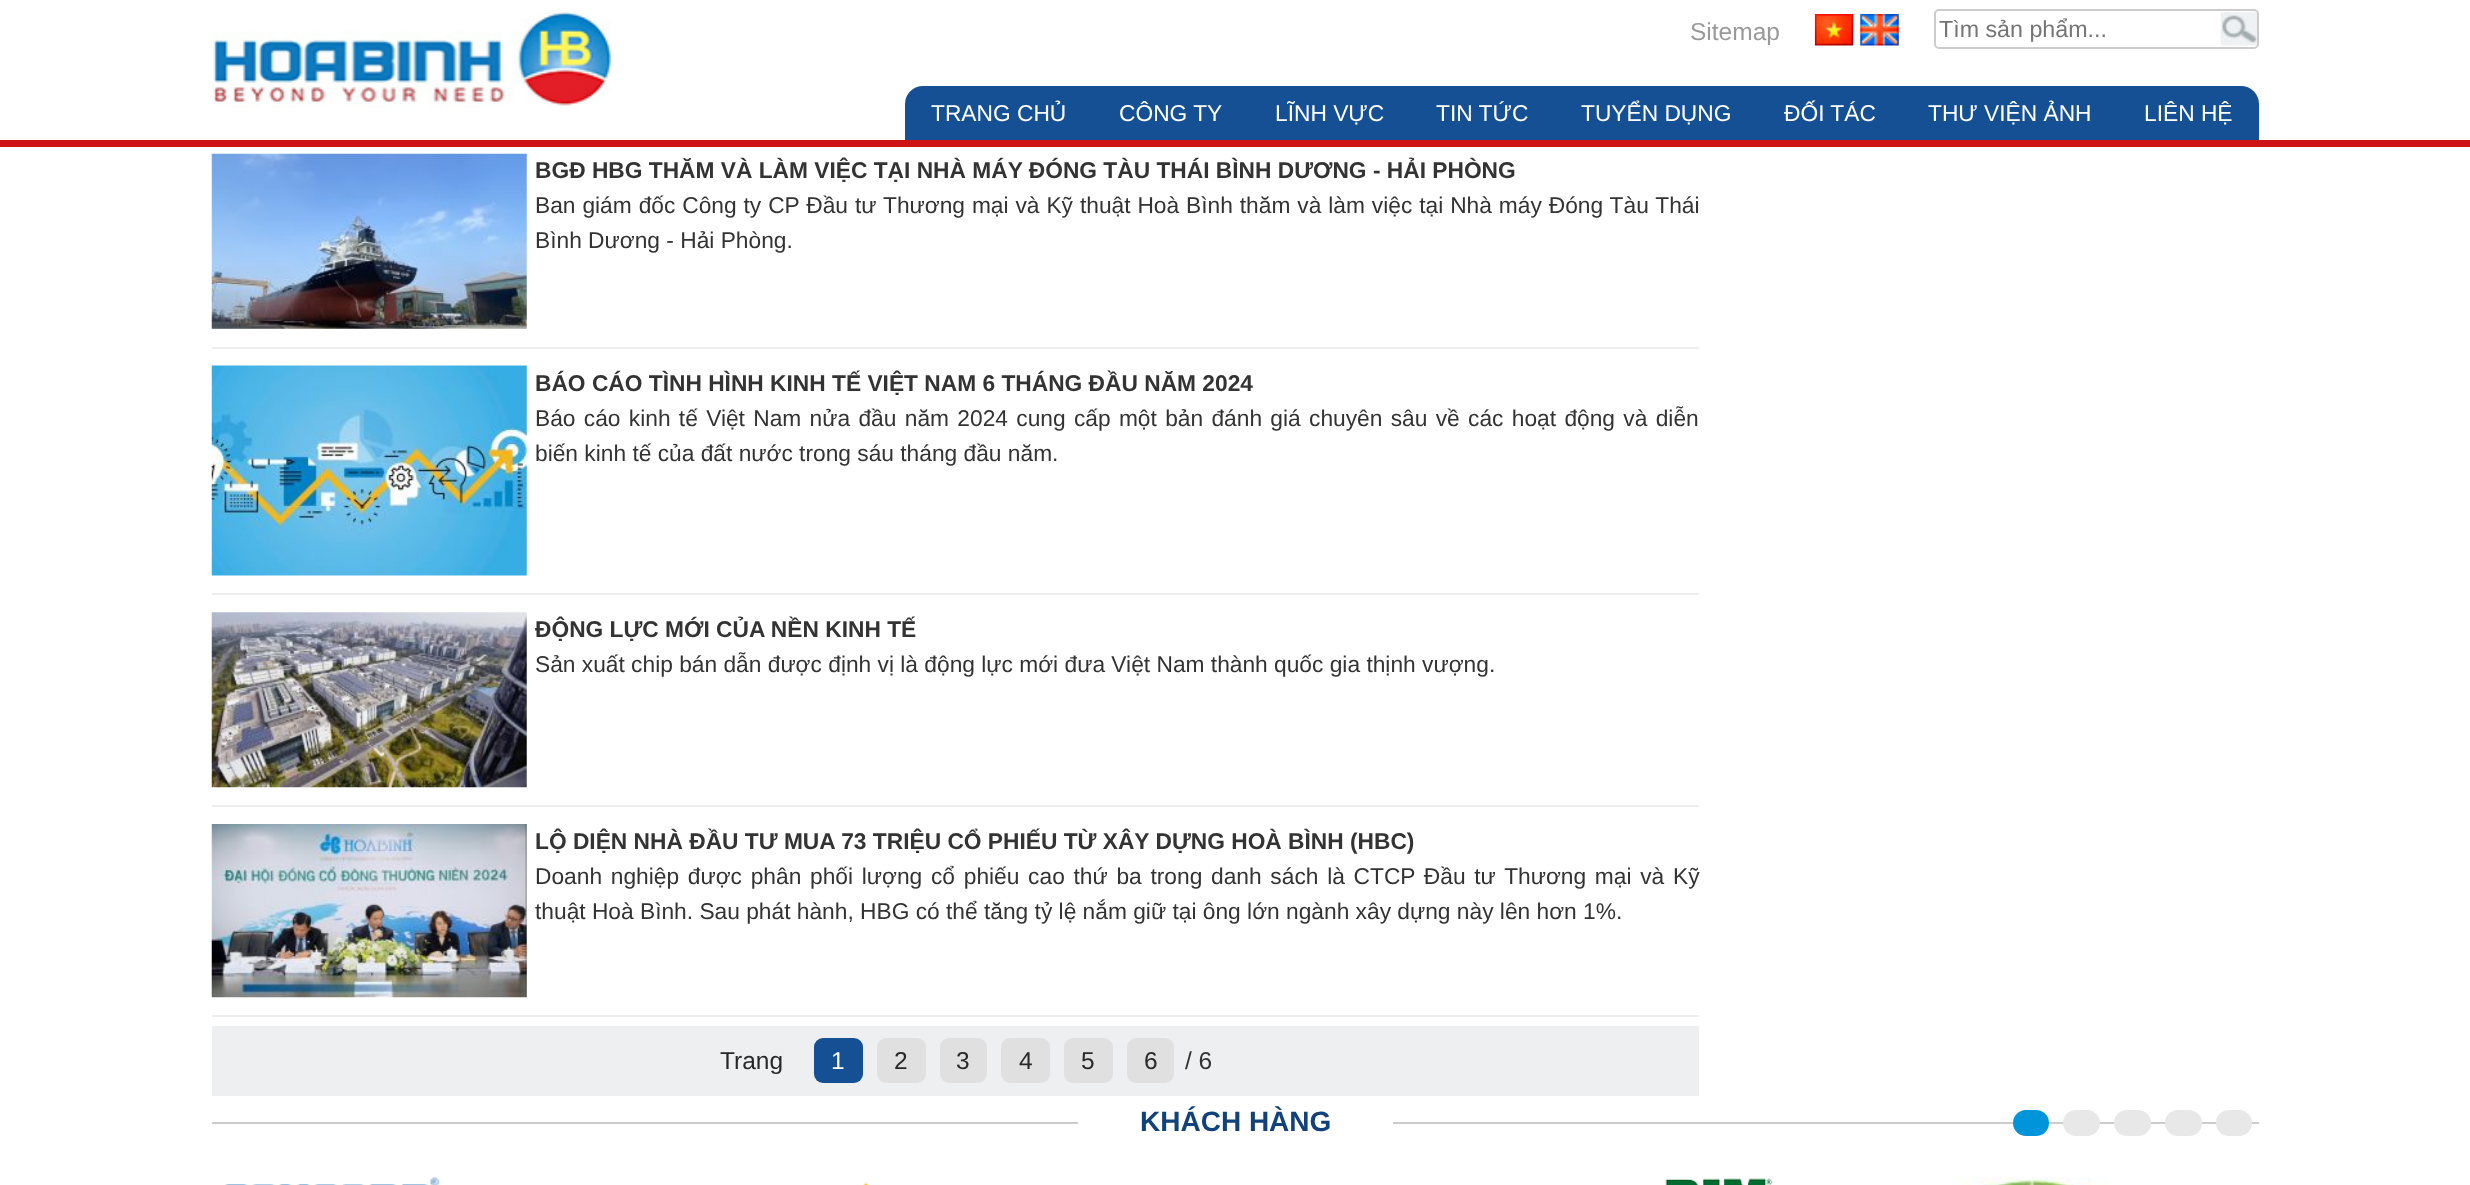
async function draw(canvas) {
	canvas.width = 2470;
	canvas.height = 1185;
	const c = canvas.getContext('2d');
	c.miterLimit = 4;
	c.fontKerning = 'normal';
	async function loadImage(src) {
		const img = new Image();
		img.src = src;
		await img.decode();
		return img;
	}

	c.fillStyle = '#fff';
	c.fillRect(0, 0, 2470, 1185);
	c.fillStyle = '#ce1317';
	c.fillRect(0, 140, 2470, 7);
	c.drawImage(await loadImage('img1.png'), 212, 9, 400, 99);
	c.font = '24.5px Liberation Sans';
	c.fillStyle = '#999';
	c.fillText('Sitemap', 1690, 40);
	c.drawImage(await loadImage('img2.png'), 1814, 14, 40, 32);
	c.drawImage(await loadImage('img3.png'), 1860, 14, 39, 32);
	c.drawImage(await loadImage('img4.png'), 2220, 12, 37, 34);
	c.beginPath();
	c.roundRect(1935, 10, 323, 38, 4);
	c.strokeStyle = '#ccc';
	c.lineWidth = 2;
	c.stroke();
	c.font = '23.25px Liberation Sans';
	c.fillStyle = '#757575';
	c.fillText('Tìm sản phẩm...', 1939, 37);
	c.fillStyle = '#165094';
	c.beginPath();
	c.roundRect(905, 86, 1354, 54, [18, 18, 0, 0]);
	c.fill();
	c.font = '22.75px Liberation Sans';
	c.fillStyle = '#fff';
	for (const [text, x, y] of [
		['TRANG CHỦ', 931, 121],
		['CÔNG TY', 1119, 121],
		['LĨNH VỰC', 1275, 121],
		['TIN TỨC', 1436, 121],
		['TUYỂN DỤNG', 1581, 121],
		['ĐỐI TÁC', 1784, 121],
		['THƯ VIỆN ẢNH', 1928, 121],
		['LIÊN HỆ', 2144, 121],
	]) {
		c.fillText(text, x, y);
	}
	c.fillStyle = '#eee';
	c.fillRect(212, 347, 1487, 2);
	c.drawImage(await loadImage('img5.png'), 211, 153, 316, 176);
	c.font = 'bold 22.75px Liberation Sans';
	c.fillStyle = '#333';
	c.fillText('BGĐ HBG THĂM VÀ LÀM VIỆC TẠI NHÀ MÁY ĐÓNG TÀU THÁI BÌNH DƯƠNG - HẢI PHÒNG', 535, 178);
	c.wordSpacing = '0.6px';
	c.font = '22.75px Liberation Sans';
	c.fillText('Ban giám đốc Công ty CP Đầu tư Thương mại và Kỹ thuật Hoà Bình thăm và làm việc tại Nhà máy Đóng Tàu Thái', 535, 213);
	c.wordSpacing = '0px';
	c.fillText('Bình Dương - Hải Phòng.', 535, 248);
	c.fillStyle = '#eee';
	c.fillRect(212, 593, 1487, 2);
	c.drawImage(await loadImage('img6.png'), 211, 365, 316, 211);
	c.font = 'bold 22.75px Liberation Sans';
	c.fillStyle = '#333';
	c.fillText('BÁO CÁO TÌNH HÌNH KINH TẾ VIỆT NAM 6 THÁNG ĐẦU NĂM 2024', 535, 391);
	c.wordSpacing = '2px';
	c.font = '22.75px Liberation Sans';
	c.fillText('Báo cáo kinh tế Việt Nam nửa đầu năm 2024 cung cấp một bản đánh giá chuyên sâu về các hoạt động và diễn', 535, 426);
	c.wordSpacing = '0px';
	c.fillText('biến kinh tế của đất nước trong sáu tháng đầu năm.', 535, 461);
	c.fillStyle = '#eee';
	c.fillRect(212, 805, 1487, 2);
	c.drawImage(await loadImage('img7.png'), 211, 612, 316, 176);
	c.font = 'bold 22.75px Liberation Sans';
	c.fillStyle = '#333';
	c.fillText('ĐỘNG LỰC MỚI CỦA NỀN KINH TẾ', 535, 637);
	c.font = '22.75px Liberation Sans';
	c.fillText('Sản xuất chip bán dẫn được định vị là động lực mới đưa Việt Nam thành quốc gia thịnh vượng.', 535, 672);
	c.fillStyle = '#eee';
	c.fillRect(212, 1015, 1487, 2);
	c.drawImage(await loadImage('img8.png'), 211, 824, 316, 174);
	c.font = 'bold 22.75px Liberation Sans';
	c.fillStyle = '#333';
	c.fillText('LỘ DIỆN NHÀ ĐẦU TƯ MUA 73 TRIỆU CỔ PHIẾU TỪ XÂY DỰNG HOÀ BÌNH (HBC)', 535, 849);
	c.wordSpacing = '2.4px';
	c.font = '22.75px Liberation Sans';
	c.fillText('Doanh nghiệp được phân phối lượng cổ phiếu cao thứ ba trong danh sách là CTCP Đầu tư Thương mại và Kỹ', 535, 884);
	c.wordSpacing = '0px';
	c.fillText('thuật Hoà Bình. Sau phát hành, HBG có thể tăng tỷ lệ nắm giữ tại ông lớn ngành xây dựng này lên hơn 1%.', 535, 919);
	c.fillStyle = '#eeeff1';
	c.fillRect(212, 1026, 1487, 70);
	c.font = '24.5px Liberation Sans';
	c.fillStyle = '#282828';
	c.fillText('Trang', 720, 1069);
	c.fillStyle = '#165094';
	c.beginPath();
	c.roundRect(814, 1038, 49, 45, 9);
	c.fill();
	c.fillStyle = '#fff';
	c.fillText('1', 831, 1069);
	c.fillStyle = '#e0e0e0';
	c.beginPath();
	c.roundRect(877, 1038, 49, 45, 9);
	c.fill();
	c.fillStyle = '#282828';
	c.fillText('2', 894, 1069);
	c.fillStyle = '#e0e0e0';
	c.beginPath();
	c.roundRect(940, 1038, 47, 45, 9);
	c.fill();
	c.fillStyle = '#282828';
	c.fillText('3', 956, 1069);
	c.fillStyle = '#e0e0e0';
	c.beginPath();
	c.roundRect(1001, 1038, 49, 45, 9);
	c.fill();
	c.fillStyle = '#282828';
	c.fillText('4', 1019, 1069);
	c.fillStyle = '#e0e0e0';
	c.beginPath();
	c.roundRect(1064, 1038, 49, 45, 9);
	c.fill();
	c.fillStyle = '#282828';
	c.fillText('5', 1081, 1069);
	c.fillStyle = '#e0e0e0';
	c.beginPath();
	c.roundRect(1127, 1038, 47, 45, 9);
	c.fill();
	c.fillStyle = '#282828';
	c.fillText('6', 1144, 1069);
	c.fillStyle = '#333';
	c.fillText('/ 6', 1185, 1069);
	c.fillStyle = '#ccc';
	c.fillRect(212, 1122, 2047, 2);
	c.fillStyle = '#fff';
	c.fillRect(1078, 1122, 315, 2);
	c.font = 'bold 28px Liberation Sans';
	c.fillStyle = '#11427c';
	c.fillText('KHÁCH HÀNG', 1140, 1131);
	c.fillStyle = '#0095da';
	c.beginPath();
	c.roundRect(2013, 1110, 36, 26, 13);
	c.fill();
	c.fillStyle = '#e8e8e8';
	c.beginPath();
	c.roundRect(2063, 1110, 37, 26, 13);
	c.fill();
	c.beginPath();
	c.roundRect(2114, 1110, 37, 26, 13);
	c.fill();
	c.beginPath();
	c.roundRect(2165, 1110, 37, 26, 13);
	c.fill();
	c.beginPath();
	c.roundRect(2216, 1110, 36, 26, 13);
	c.fill();
	c.drawImage(await loadImage('img9.png'), 224, 1177, 216, 8);
	c.drawImage(await loadImage('img10.png'), 863, 1182, 6, 3);
	c.drawImage(await loadImage('img11.png'), 1665, 1178, 108, 7);
	c.drawImage(await loadImage('img12.png'), 1953, 1177, 154, 8);
}

draw(document.querySelector('canvas'));
